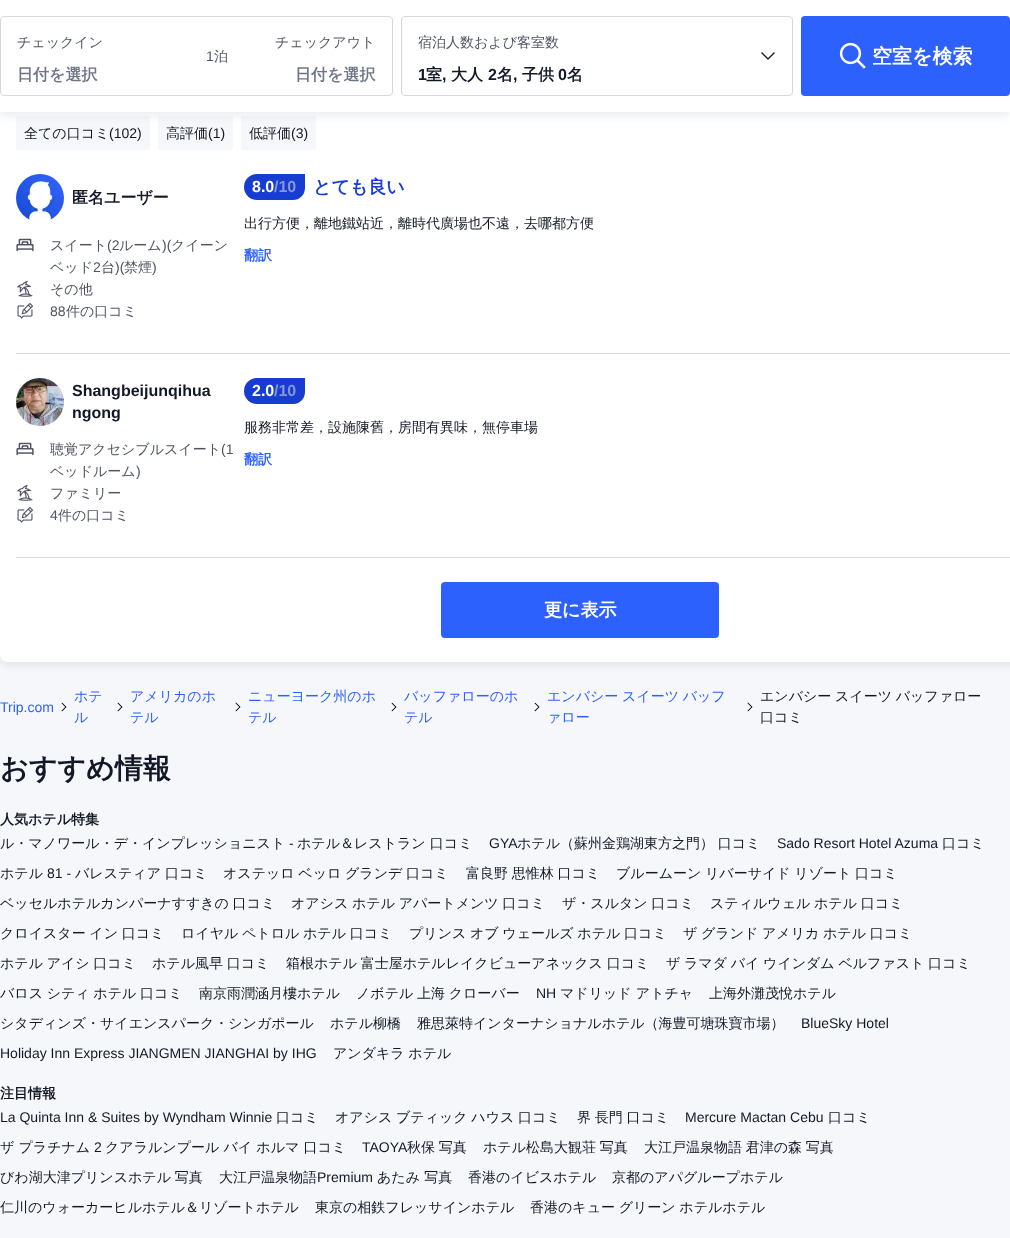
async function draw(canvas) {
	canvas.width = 1010;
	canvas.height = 1238;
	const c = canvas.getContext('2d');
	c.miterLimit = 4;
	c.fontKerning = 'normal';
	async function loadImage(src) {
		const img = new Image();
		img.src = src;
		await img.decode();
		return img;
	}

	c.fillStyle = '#f6f7fa';
	c.fillRect(0, 0, 1010, 1238);
	c.fillStyle = '#0f294d14';
	c.filter = 'blur(4px)';
	c.beginPath();
	c.roundRect(0, -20, 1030, 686, 8);
	c.fill();
	c.filter = 'none';
	c.fillStyle = '#fff';
	c.beginPath();
	c.roundRect(0, -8, 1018, 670, 8);
	c.fill();
	c.fillStyle = '#f6f7fa';
	c.beginPath();
	c.roundRect(16, 116, 134, 34, 2);
	c.fill();
	c.beginPath();
	c.roundRect(158, 116, 75, 34, 2);
	c.fill();
	c.beginPath();
	c.roundRect(241, 116, 75, 34, 2);
	c.fill();
	c.fillStyle = '#0f294d14';
	c.filter = 'blur(4px)';
	c.beginPath();
	c.rect(0, 4, 1010, 112);
	c.fill();
	c.filter = 'none';
	c.fillStyle = '#fff';
	c.fillRect(0, 0, 1010, 112);
	c.beginPath();
	c.roundRect(0.5, 16.5, 392, 79, 3.5);
	c.strokeStyle = '#d4d7de';
	c.stroke();
	c.font = '500 14px WenQuanYi Zen Hei';
	c.fillStyle = '#4f5563';
	c.fillText('チェックイン', 17, 47);
	c.font = 'bold 16px WenQuanYi Zen Hei';
	c.fillStyle = '#6f7685';
	c.fillText('日付を選択', 17, 80);
	c.font = '14px Liberation Sans';
	c.fillStyle = '#4f5563';
	c.fillText('1', 206, 61);
	c.font = '500 14px WenQuanYi Zen Hei';
	c.fillText('泊', 214, 61);
	c.fillText('チェックアウト', 275, 47);
	c.font = 'bold 16px WenQuanYi Zen Hei';
	c.fillStyle = '#6f7685';
	c.fillText('日付を選択', 295, 80);
	c.beginPath();
	c.roundRect(401.5, 16.5, 391, 79, 3.5);
	c.stroke();
	c.font = '500 14px WenQuanYi Zen Hei';
	c.fillStyle = '#4f5563';
	c.fillText('宿泊人数および客室数', 418, 47);
	c.font = 'bold 16px Liberation Sans';
	c.fillStyle = '#121826';
	c.fillText('1', 418, 80);
	c.font = 'bold 16px WenQuanYi Zen Hei';
	c.fillText('室', 426, 80);
	c.font = 'bold 16px Liberation Sans';
	c.fillText(',', 442, 80);
	c.font = 'bold 16px WenQuanYi Zen Hei';
	c.fillText('大人', 451, 80);
	c.font = 'bold 16px Liberation Sans';
	c.fillText('2', 488, 80);
	c.font = 'bold 16px WenQuanYi Zen Hei';
	c.fillText('名', 497, 80);
	c.font = 'bold 16px Liberation Sans';
	c.fillText(',', 513, 80);
	c.font = 'bold 16px WenQuanYi Zen Hei';
	c.fillText('子供', 522, 80);
	c.font = 'bold 16px Liberation Sans';
	c.fillText('0', 558, 80);
	c.font = 'bold 16px WenQuanYi Zen Hei';
	c.fillText('名', 567, 80);
	c.drawImage(await loadImage('img1.png'), 761, 52, 14, 8);
	c.fillStyle = '#2c61fe';
	c.beginPath();
	c.roundRect(801, 16, 209, 80, 4);
	c.fill();
	c.drawImage(await loadImage('img2.png'), 839, 42, 27, 27);
	c.font = 'bold 20px WenQuanYi Zen Hei';
	c.fillStyle = '#fff';
	c.fillText('空室を検索', 872, 63);
	c.font = '500 14px WenQuanYi Zen Hei';
	c.fillStyle = '#121826';
	c.fillText('全ての口コミ', 24, 138);
	c.font = '14px Liberation Sans';
	c.fillText('(102)', 109, 138);
	c.font = '500 14px WenQuanYi Zen Hei';
	c.fillText('高評価', 166, 138);
	c.font = '14px Liberation Sans';
	c.fillText('(1)', 208, 138);
	c.font = '500 14px WenQuanYi Zen Hei';
	c.fillText('低評価', 249, 138);
	c.font = '14px Liberation Sans';
	c.fillText('(3)', 291, 138);
	c.fillStyle = '#d4d7de';
	c.fillRect(16, 353, 994, 1);
	c.drawImage(await loadImage('img3.png'), 16, 174, 48, 46);
	c.font = 'bold 16px WenQuanYi Zen Hei';
	c.fillStyle = '#121826';
	c.fillText('匿名ユーザー', 72, 203);
	c.drawImage(await loadImage('img4.png'), 16, 238, 18, 14);
	c.font = '500 14px WenQuanYi Zen Hei';
	c.fillStyle = '#4f5563';
	c.fillText('スイート', 50, 250);
	c.font = '14px Liberation Sans';
	c.fillText('(2', 107, 250);
	c.font = '500 14px WenQuanYi Zen Hei';
	c.fillText('ルーム', 119, 250);
	c.font = '14px Liberation Sans';
	c.fillText(')(', 162, 250);
	c.font = '500 14px WenQuanYi Zen Hei';
	c.fillText('クイーン', 171, 250);
	c.fillText('ベッド', 50, 272);
	c.font = '14px Liberation Sans';
	c.fillText('2', 93, 272);
	c.font = '500 14px WenQuanYi Zen Hei';
	c.fillText('台', 101, 272);
	c.font = '14px Liberation Sans';
	c.fillText(')(', 115, 272);
	c.font = '500 14px WenQuanYi Zen Hei';
	c.fillText('禁煙', 124, 272);
	c.font = '14px Liberation Sans';
	c.fillText(')', 152, 272);
	c.drawImage(await loadImage('img5.png'), 16, 280, 17, 17);
	c.font = '500 14px WenQuanYi Zen Hei';
	c.fillText('その他', 50, 294);
	c.drawImage(await loadImage('img6.png'), 17, 303, 16, 16);
	c.font = '14px Liberation Sans';
	c.fillText('88', 50, 316);
	c.font = '500 14px WenQuanYi Zen Hei';
	c.fillText('件の口コミ', 66, 316);
	c.fillStyle = '#173cd2';
	c.beginPath();
	c.roundRect(244, 174, 61, 26, [13, 0, 12, 13]);
	c.fill();
	c.font = 'bold 16px Liberation Sans';
	c.fillStyle = '#fff';
	c.fillText('8.0', 252, 192);
	c.fillStyle = '#8598d1';
	c.fillText('/10', 274, 192);
	c.font = 'bold 18px WenQuanYi Zen Hei';
	c.fillStyle = '#173cd2';
	c.fillText('とても良い', 313, 193);
	c.font = '500 14px WenQuanYi Zen Hei';
	c.fillStyle = '#121826';
	c.fillText('出行方便，離地鐵站近，離時代廣場也不遠，去哪都方便', 244, 228);
	c.font = 'bold 14px WenQuanYi Zen Hei';
	c.fillStyle = '#2c61fe';
	c.fillText('翻訳', 244, 260);
	c.fillStyle = '#d4d7de';
	c.fillRect(16, 557, 994, 1);
	c.drawImage(await loadImage('img7.png'), 16, 378, 48, 48);
	c.font = 'bold 16px Liberation Sans';
	c.fillStyle = '#121826';
	c.fillText('Shangbeijunqihua', 72, 396);
	c.fillText('ngong', 72, 418);
	c.drawImage(await loadImage('img4.png'), 16, 442, 18, 14);
	c.font = '500 14px WenQuanYi Zen Hei';
	c.fillStyle = '#4f5563';
	c.fillText('聴覚アクセシブルスイート', 50, 454);
	c.font = '14px Liberation Sans';
	c.fillText('(1', 221, 454);
	c.font = '500 14px WenQuanYi Zen Hei';
	c.fillText('ベッドルーム', 50, 476);
	c.font = '14px Liberation Sans';
	c.fillText(')', 136, 476);
	c.drawImage(await loadImage('img5.png'), 16, 484, 17, 17);
	c.font = '500 14px WenQuanYi Zen Hei';
	c.fillText('ファミリー', 50, 498);
	c.drawImage(await loadImage('img6.png'), 17, 507, 16, 16);
	c.font = '14px Liberation Sans';
	c.fillText('4', 50, 520);
	c.font = '500 14px WenQuanYi Zen Hei';
	c.fillText('件の口コミ', 58, 520);
	c.fillStyle = '#173cd2';
	c.beginPath();
	c.roundRect(244, 378, 61, 26, [13, 0, 12, 13]);
	c.fill();
	c.font = 'bold 16px Liberation Sans';
	c.fillStyle = '#fff';
	c.fillText('2.0', 252, 396);
	c.fillStyle = '#8598d1';
	c.fillText('/10', 274, 396);
	c.font = '500 14px WenQuanYi Zen Hei';
	c.fillStyle = '#121826';
	c.fillText('服務非常差，設施陳舊，房間有異味，無停車場', 244, 432);
	c.font = 'bold 14px WenQuanYi Zen Hei';
	c.fillStyle = '#2c61fe';
	c.fillText('翻訳', 244, 464);
	c.beginPath();
	c.roundRect(441, 582, 278, 56, 4);
	c.fill();
	c.font = 'bold 18px WenQuanYi Zen Hei';
	c.fillStyle = '#fff';
	c.fillText('更に表示', 544, 616);
	c.font = '14px Liberation Sans';
	c.fillStyle = '#2c61fe';
	c.fillText('Trip.com', 0, 712);
	c.drawImage(await loadImage('img8.png'), 61, 702, 6, 10);
	c.font = '500 14px WenQuanYi Zen Hei';
	c.fillText('ホテ', 74, 701);
	c.fillText('ル', 74, 722);
	c.drawImage(await loadImage('img8.png'), 117, 702, 6, 10);
	c.fillText('アメリカのホ', 130, 701);
	c.fillText('テル', 130, 722);
	c.drawImage(await loadImage('img8.png'), 235, 702, 6, 10);
	c.fillText('ニューヨーク州のホ', 248, 701);
	c.fillText('テル', 248, 722);
	c.drawImage(await loadImage('img8.png'), 391, 702, 6, 10);
	c.fillText('バッファローのホ', 404, 701);
	c.fillText('テル', 404, 722);
	c.drawImage(await loadImage('img8.png'), 534, 702, 6, 10);
	c.wordSpacing = '-0.5px';
	c.fillText('エンバシー スイーツ バッフ', 547, 701);
	c.wordSpacing = '0px';
	c.fillText('ァロー', 547, 722);
	c.drawImage(await loadImage('img8.png'), 747, 702, 6, 10);
	c.wordSpacing = '-0.5px';
	c.fillStyle = '#121826';
	c.fillText('エンバシー スイーツ バッファロー', 760, 701);
	c.wordSpacing = '0px';
	c.fillText('口コミ', 760, 722);
	c.font = 'bold 28px WenQuanYi Zen Hei';
	c.fillText('おすすめ情報', 0, 778);
	c.font = 'bold 14px WenQuanYi Zen Hei';
	c.fillText('人気ホテル特集', 0, 824);
	c.font = '500 14px WenQuanYi Zen Hei';
	c.fillText('ル・マノワール・デ・インプレッショニスト', 0, 848);
	c.font = '14px Liberation Sans';
	c.fillText('-', 289, 848);
	c.font = '500 14px WenQuanYi Zen Hei';
	c.fillText('ホテル＆レストラン 口コミ', 297, 848);
	c.font = '14px Liberation Sans';
	c.fillText('GYA', 489, 848);
	c.wordSpacing = '-0.5px';
	c.font = '500 14px WenQuanYi Zen Hei';
	c.fillText('ホテル（蘇州金鶏湖東方之門） 口コミ', 517, 848);
	c.wordSpacing = '0px';
	c.font = '14px Liberation Sans';
	c.fillText('Sado Resort Hotel Azuma', 777, 848);
	c.font = '500 14px WenQuanYi Zen Hei';
	c.fillText('口コミ', 942, 848);
	c.fillText('ホテル', 0, 878);
	c.font = '14px Liberation Sans';
	c.fillText('81 -', 47, 878);
	c.font = '500 14px WenQuanYi Zen Hei';
	c.fillText('バレスティア', 75, 878);
	c.fillText('口コミ', 165, 878);
	c.wordSpacing = '-0.5px';
	for (const [text, x, y] of [
		['オステッロ ベッロ グランデ 口コミ', 223, 878],
		['富良野 思惟林 口コミ', 466, 878],
		['ブルームーン リバーサイド リゾート 口コミ', 616, 878],
		['ベッセルホテルカンパーナすすきの 口コミ', 0, 908],
		['オアシス ホテル アパートメンツ 口コミ', 291, 908],
		['ザ・スルタン 口コミ', 562, 908],
		['スティルウェル ホテル 口コミ', 710, 908],
		['クロイスター イン 口コミ', 0, 938],
		['ロイヤル ペトロル ホテル 口コミ', 181, 938],
		['プリンス オブ ウェールズ ホテル 口コミ', 409, 938],
		['ザ グランド アメリカ ホテル 口コミ', 683, 938],
		['ホテル アイシ 口コミ', 0, 968],
		['ホテル風早 口コミ', 152, 968],
		['箱根ホテル 富士屋ホテルレイクビューアネックス 口コミ', 286, 968],
		['ザ ラマダ バイ ウインダム ベルファスト 口コミ', 666, 968],
		['バロス シティ ホテル 口コミ', 0, 998],
	]) {
		c.fillText(text, x, y);
	}
	c.wordSpacing = '0px';
	c.fillText('南京雨潤涵月樓ホテル', 199, 998);
	c.wordSpacing = '-0.5px';
	c.fillText('ノボテル 上海 クローバー', 356, 998);
	c.wordSpacing = '0px';
	c.font = '14px Liberation Sans';
	c.fillText('NH', 536, 998);
	c.font = '500 14px WenQuanYi Zen Hei';
	for (const [text, x, y] of [
		['マドリッド アトチャ', 560, 998],
		['上海外灘茂悅ホテル', 709, 998],
		['シタディンズ・サイエンスパーク・シンガポール', 0, 1028],
		['ホテル柳橋', 330, 1028],
		['雅思萊特インターナショナルホテル（海豊可塘珠寶市場）', 417, 1028],
	]) {
		c.fillText(text, x, y);
	}
	c.font = '14px Liberation Sans';
	c.fillText('BlueSky Hotel', 801, 1028);
	c.fillText('Holiday Inn Express JIANGMEN JIANGHAI by IHG', 0, 1058);
	c.wordSpacing = '-0.5px';
	c.font = '500 14px WenQuanYi Zen Hei';
	c.fillText('アンダキラ ホテル', 333, 1058);
	c.wordSpacing = '0px';
	c.font = 'bold 14px WenQuanYi Zen Hei';
	c.fillText('注目情報', 0, 1098);
	c.font = '14px Liberation Sans';
	c.fillText('La Quinta Inn & Suites by Wyndham Winnie', 0, 1122);
	c.font = '500 14px WenQuanYi Zen Hei';
	c.fillText('口コミ', 276, 1122);
	c.wordSpacing = '-0.5px';
	c.fillText('オアシス ブティック ハウス 口コミ', 335, 1122);
	c.fillText('界 長門 口コミ', 577, 1122);
	c.wordSpacing = '0px';
	c.font = '14px Liberation Sans';
	c.fillText('Mercure Mactan Cebu', 685, 1122);
	c.font = '500 14px WenQuanYi Zen Hei';
	c.fillText('口コミ', 828, 1122);
	c.fillText('ザ プラチナム', 0, 1152);
	c.font = '14px Liberation Sans';
	c.fillText('2', 94, 1152);
	c.font = '500 14px WenQuanYi Zen Hei';
	c.fillText('クアラルンプール バイ ホルマ 口コミ', 105, 1152);
	c.font = '14px Liberation Sans';
	c.fillText('TAOYA', 362, 1152);
	c.wordSpacing = '-0.5px';
	c.font = '500 14px WenQuanYi Zen Hei';
	for (const [text, x, y] of [
		['秋保 写真', 407, 1152],
		['ホテル松島大観荘 写真', 483, 1152],
		['大江戸温泉物語 君津の森 写真', 644, 1152],
		['びわ湖大津プリンスホテル 写真', 0, 1182],
	]) {
		c.fillText(text, x, y);
	}
	c.wordSpacing = '0px';
	c.fillText('大江戸温泉物語', 219, 1182);
	c.font = '14px Liberation Sans';
	c.fillText('Premium', 317, 1182);
	c.font = '500 14px WenQuanYi Zen Hei';
	for (const [text, x, y] of [
		['あたみ 写真', 377, 1182],
		['香港のイビスホテル', 468, 1182],
		['京都のアパグループホテル', 612, 1182],
		['仁川のウォーカーヒルホテル＆リゾートホテル', 0, 1212],
		['東京の相鉄フレッサインホテル', 315, 1212],
	]) {
		c.fillText(text, x, y);
	}
	c.wordSpacing = '-0.5px';
	c.fillText('香港のキュー グリーン ホテルホテル', 530, 1212);
}

draw(document.querySelector('canvas'));
